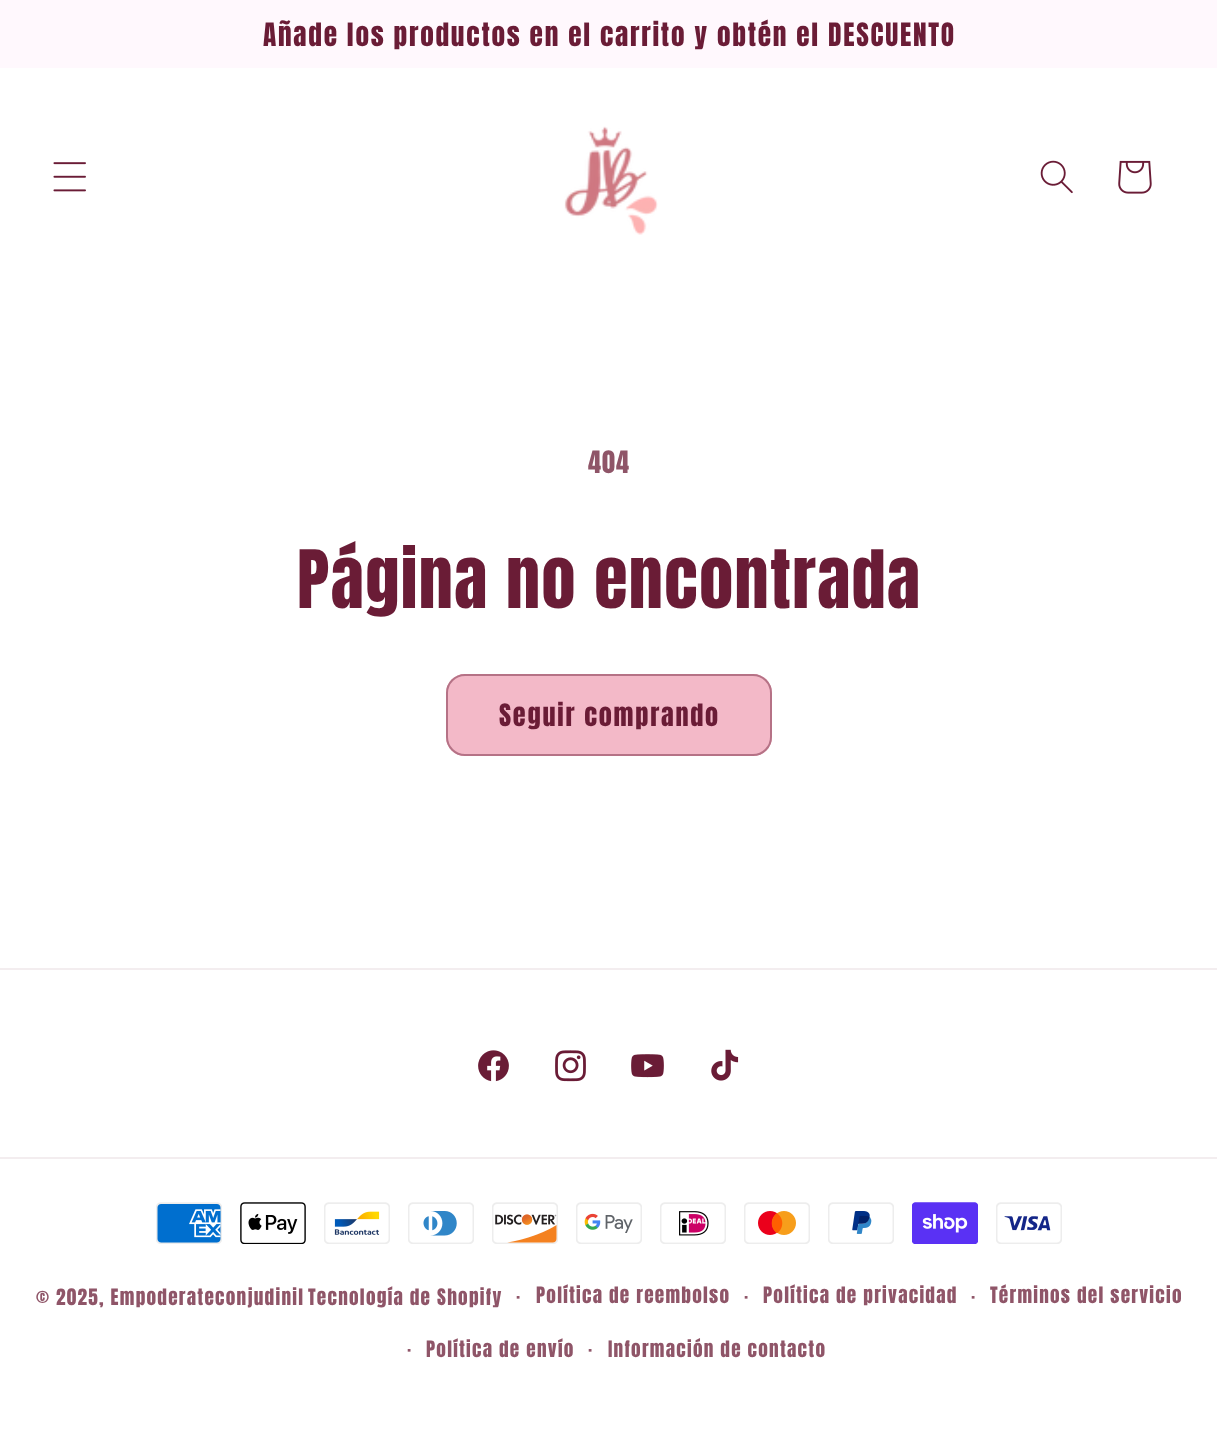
async function draw(canvas) {
	canvas.width = 1217;
	canvas.height = 1439;
	const c = canvas.getContext('2d');
	c.miterLimit = 4;
	c.fontKerning = 'normal';
	async function loadImage(src) {
		const img = new Image();
		img.src = src;
		await img.decode();
		return img;
	}

	c.fillStyle = '#fff';
	c.fillRect(0, 0, 1217, 1439);
	c.fillStyle = '#fff8fd';
	c.fillRect(0, 0, 1217, 68);
	c.letterSpacing = '1.75px';
	c.font = '27.3px Anton';
	c.fillStyle = '#6a1c36';
	c.fillText('Añade los productos en el carrito y obtén el DESCUENTO', 263, 46);
	c.drawImage(await loadImage('img1.png'), 53, 162, 33, 30);
	c.drawImage(await loadImage('img2.png'), 564, 126, 94, 109);
	c.drawImage(await loadImage('img3.png'), 1040, 160, 33, 34);
	c.drawImage(await loadImage('img4.png'), 1118, 160, 34, 34);
	c.letterSpacing = '1px';
	c.font = '26.25px Anton';
	c.fillStyle = '#8f5568';
	c.fillText('404', 588, 473);
	c.letterSpacing = '1.4px';
	c.font = '68.25px Anton';
	c.fillStyle = '#6a1c36';
	c.fillText('Página no encontrada', 297, 608);
	c.fillStyle = '#f3b9c8';
	c.beginPath();
	c.roundRect(446, 674, 326, 82, 19);
	c.fill();
	c.beginPath();
	c.roundRect(447, 675, 324, 80, 18);
	c.strokeStyle = '#f3b9c8';
	c.lineWidth = 2;
	c.stroke();
	c.beginPath();
	c.roundRect(447, 675, 324, 80, 18);
	c.strokeStyle = '#6a1c3673';
	c.stroke();
	c.letterSpacing = '1.75px';
	c.font = '26.25px Anton';
	c.fillStyle = '#6a1c36';
	c.fillText('Seguir comprando', 499, 726);
	c.fillStyle = '#f3edef';
	c.fillRect(0, 968, 1217, 2);
	c.drawImage(await loadImage('img5.png'), 478, 1050, 31, 32);
	c.drawImage(await loadImage('img6.png'), 555, 1050, 31, 32);
	c.drawImage(await loadImage('img7.png'), 631, 1054, 33, 24);
	c.drawImage(await loadImage('img8.png'), 711, 1049, 28, 32);
	c.fillRect(0, 1157, 1217, 2);
	c.drawImage(await loadImage('img9.png'), 156, 1202, 66, 42);
	c.drawImage(await loadImage('img10.png'), 240, 1202, 66, 42);
	c.drawImage(await loadImage('img11.png'), 324, 1202, 66, 42);
	c.drawImage(await loadImage('img12.png'), 408, 1202, 66, 42);
	c.drawImage(await loadImage('img13.png'), 492, 1202, 66, 42);
	c.drawImage(await loadImage('img14.png'), 576, 1202, 66, 42);
	c.drawImage(await loadImage('img15.png'), 660, 1202, 66, 42);
	c.drawImage(await loadImage('img16.png'), 744, 1202, 66, 42);
	c.drawImage(await loadImage('img17.png'), 828, 1202, 66, 42);
	c.drawImage(await loadImage('img18.png'), 912, 1202, 66, 42);
	c.drawImage(await loadImage('img19.png'), 996, 1202, 66, 42);
	c.letterSpacing = '1.25px';
	c.font = '19.25px Anton';
	c.fillStyle = '#8f5568';
	c.fillText('© 2025, Empoderateconjudinil', 36, 1305);
	c.fillText('Tecnología de Shopify', 308, 1305);
	c.font = '18px Anton';
	c.fillText('·', 516, 1305);
	c.font = '19.25px Anton';
	c.fillText('Política de reembolso', 536, 1303);
	c.font = '18px Anton';
	c.fillText('·', 744, 1305);
	c.font = '19.25px Anton';
	c.fillText('Política de privacidad', 763, 1303);
	c.font = '18px Anton';
	c.fillText('·', 971, 1305);
	c.font = '19.25px Anton';
	c.fillText('Términos del servicio', 990, 1303);
	c.font = '18px Anton';
	c.fillText('·', 407, 1358);
	c.font = '19.25px Anton';
	c.fillText('Política de envío', 426, 1357);
	c.font = '18px Anton';
	c.fillText('·', 588, 1358);
	c.font = '19.25px Anton';
	c.fillText('Información de contacto', 608, 1357);
}

draw(document.querySelector('canvas'));
